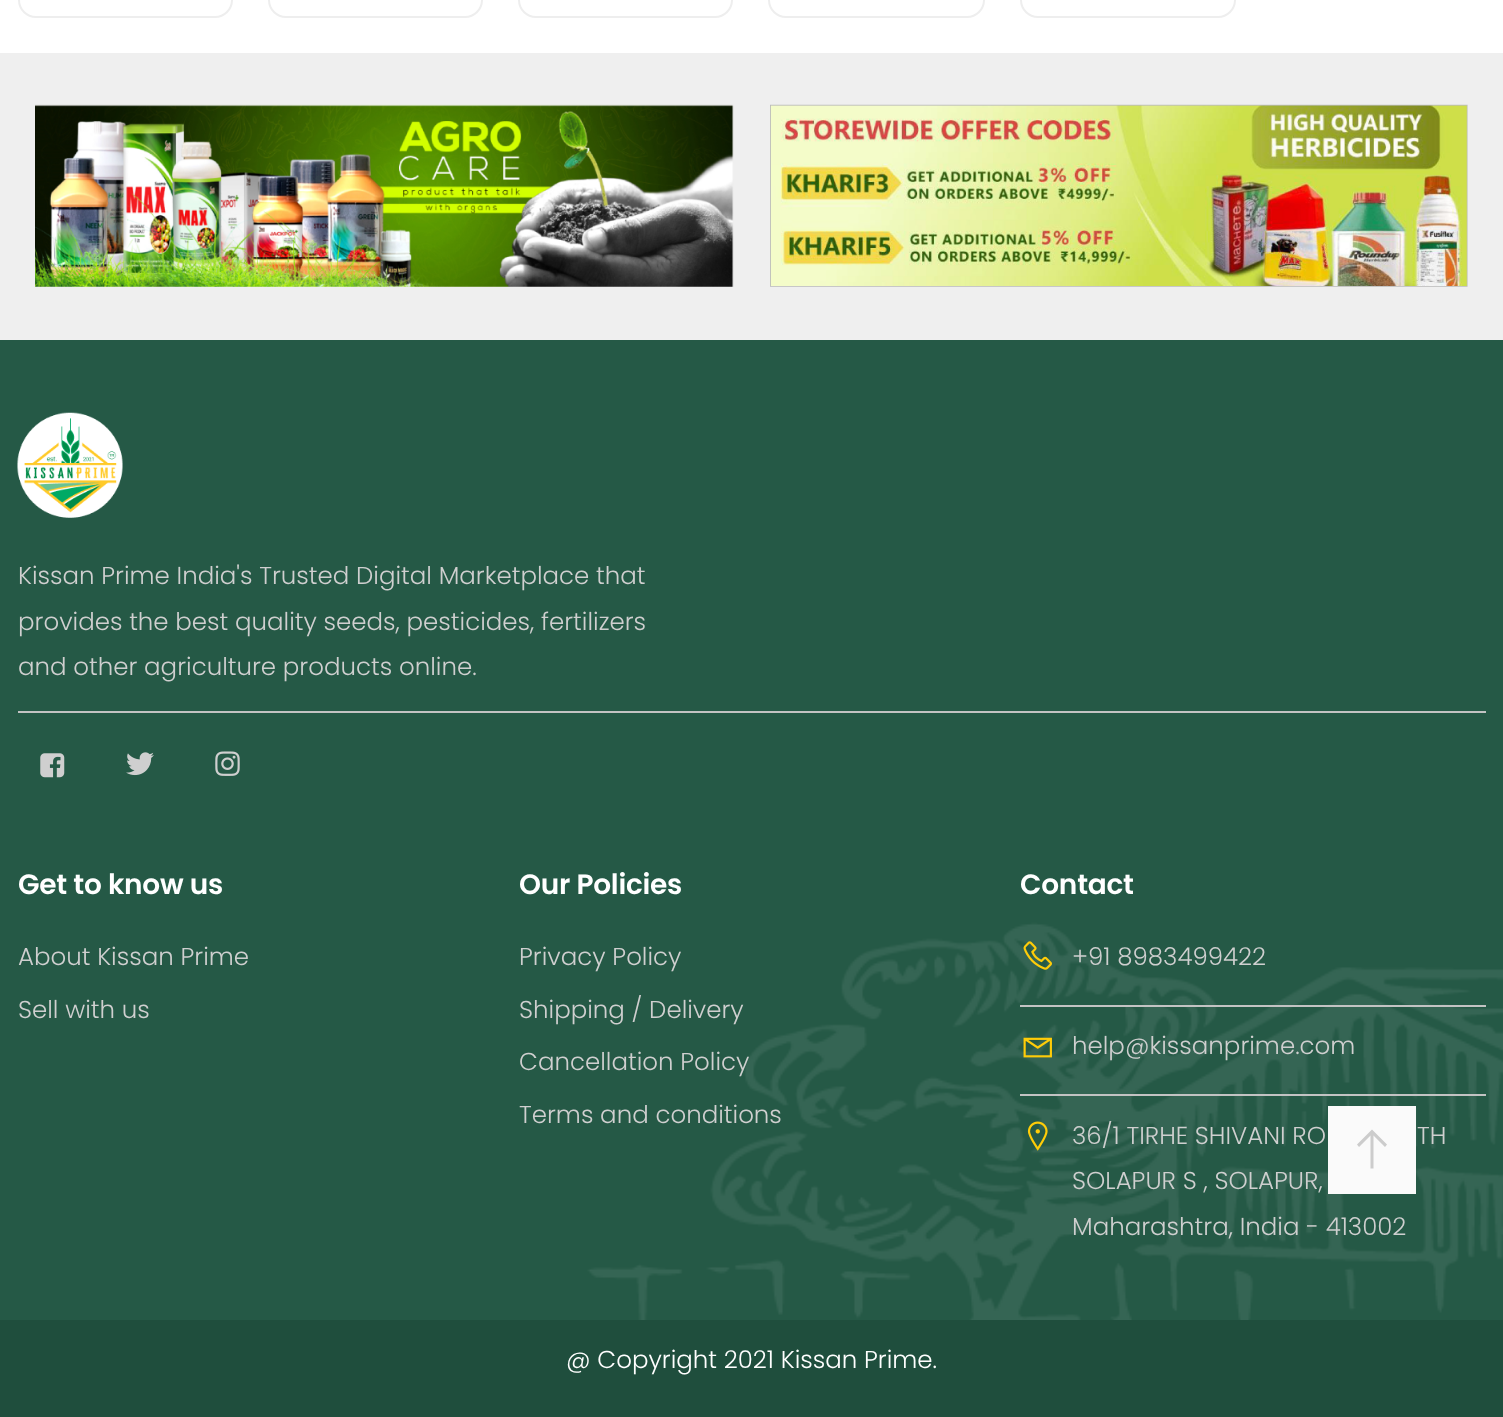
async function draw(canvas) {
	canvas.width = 1503;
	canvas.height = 1417;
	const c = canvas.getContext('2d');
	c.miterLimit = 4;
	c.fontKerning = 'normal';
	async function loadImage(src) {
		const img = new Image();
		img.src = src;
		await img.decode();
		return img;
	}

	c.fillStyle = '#fff';
	c.fillRect(0, 0, 1503, 1417);
	c.beginPath();
	c.roundRect(19, -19, 213, 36, 17);
	c.strokeStyle = '#eee';
	c.lineWidth = 2;
	c.stroke();
	c.beginPath();
	c.roundRect(269, -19, 213, 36, 17);
	c.stroke();
	c.beginPath();
	c.roundRect(519, -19, 213, 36, 17);
	c.stroke();
	c.beginPath();
	c.roundRect(769, -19, 215, 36, 17);
	c.stroke();
	c.beginPath();
	c.roundRect(1021, -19, 214, 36, 17);
	c.stroke();
	c.fillStyle = '#efefef';
	c.fillRect(0, 53, 1503, 287);
	c.drawImage(await loadImage('img1.png'), 35, 104, 699, 183);
	c.drawImage(await loadImage('img2.png'), 770, 104, 698, 183);
	c.drawImage(await loadImage('img3.png'), 0, 340, 1503, 980);
	c.drawImage(await loadImage('img4.png'), 17, 412, 106, 106);
	c.font = '300 24.5px Poppins';
	c.fillStyle = '#cfcfcf';
	for (const [text, x, y] of [
		['Kissan Prime India\'s Trusted Digital Marketplace that', 18, 584],
		['provides the best quality seeds, pesticides, fertilizers', 18, 630],
		['and other agriculture products online.', 18, 675],
	]) {
		c.fillText(text, x, y);
	}
	c.fillStyle = '#c3c3c3';
	c.fillRect(18, 711, 1468, 2);
	c.drawImage(await loadImage('img5.png'), 40, 753, 25, 25);
	c.drawImage(await loadImage('img6.png'), 126, 752, 28, 24);
	c.drawImage(await loadImage('img7.png'), 215, 751, 25, 25);
	c.letterSpacing = '-0.25px';
	c.font = '600 28px Poppins';
	c.fillStyle = '#fff';
	c.fillText('Get to know us', 18, 894);
	c.letterSpacing = '0px';
	c.font = '300 24.5px Poppins';
	c.fillStyle = '#cfcfcf';
	c.fillText('About Kissan Prime', 18, 965);
	c.fillText('Sell with us', 18, 1018);
	c.letterSpacing = '-0.25px';
	c.font = '600 28px Poppins';
	c.fillStyle = '#fff';
	c.fillText('Our Policies', 519, 894);
	c.letterSpacing = '0px';
	c.font = '300 24.5px Poppins';
	c.fillStyle = '#cfcfcf';
	for (const [text, x, y] of [
		['Privacy Policy', 519, 965],
		['Shipping / Delivery', 519, 1018],
		['Cancellation Policy', 519, 1070],
		['Terms and conditions', 519, 1123],
	]) {
		c.fillText(text, x, y);
	}
	c.letterSpacing = '-0.25px';
	c.font = '600 28px Poppins';
	c.fillStyle = '#fff';
	c.fillText('Contact', 1020, 894);
	c.drawImage(await loadImage('img8.png'), 1023, 941, 29, 29);
	c.letterSpacing = '0px';
	c.font = '300 24.5px Poppins';
	c.fillStyle = '#cfcfcf';
	c.fillText('+91 8983499422', 1072, 965);
	c.fillStyle = '#c3c3c3';
	c.fillRect(1020, 1005, 466, 2);
	c.drawImage(await loadImage('img9.png'), 1023, 1037, 29, 21);
	c.fillStyle = '#cfcfcf';
	c.fillText('help@kissanprime.com', 1072, 1054);
	c.fillStyle = '#c3c3c3';
	c.fillRect(1020, 1094, 466, 2);
	c.drawImage(await loadImage('img10.png'), 1027, 1121, 21, 30);
	c.fillStyle = '#cfcfcf';
	for (const [text, x, y] of [
		['36/1 TIRHE SHIVANI RO', 1072, 1144],
		['TH', 1417, 1144],
		['SOLAPUR S , SOLAPUR,', 1072, 1189],
		['Maharashtra, India - 413002', 1072, 1235],
	]) {
		c.fillText(text, x, y);
	}
	c.fillStyle = '#1f4e3d';
	c.fillRect(0, 1320, 1503, 97);
	c.fillStyle = '#fff';
	c.fillText('@ Copyright 2021 Kissan Prime.', 566, 1368);
	c.fillStyle = '#fafafa';
	c.fillRect(1328, 1106, 88, 88);
	c.fillStyle = '#ccc';
	c.beginPath();
	c.moveTo(1372, 1129.5);
	c.lineTo(1387, 1144.5);
	c.lineTo(1385, 1147);
	c.lineTo(1373.5, 1135.5);
	c.lineTo(1373.5, 1168.5);
	c.lineTo(1370.5, 1168.5);
	c.lineTo(1370.5, 1135.5);
	c.lineTo(1359, 1147);
	c.lineTo(1357, 1144.5);
	c.closePath();
	c.fill();
}

draw(document.querySelector('canvas'));
